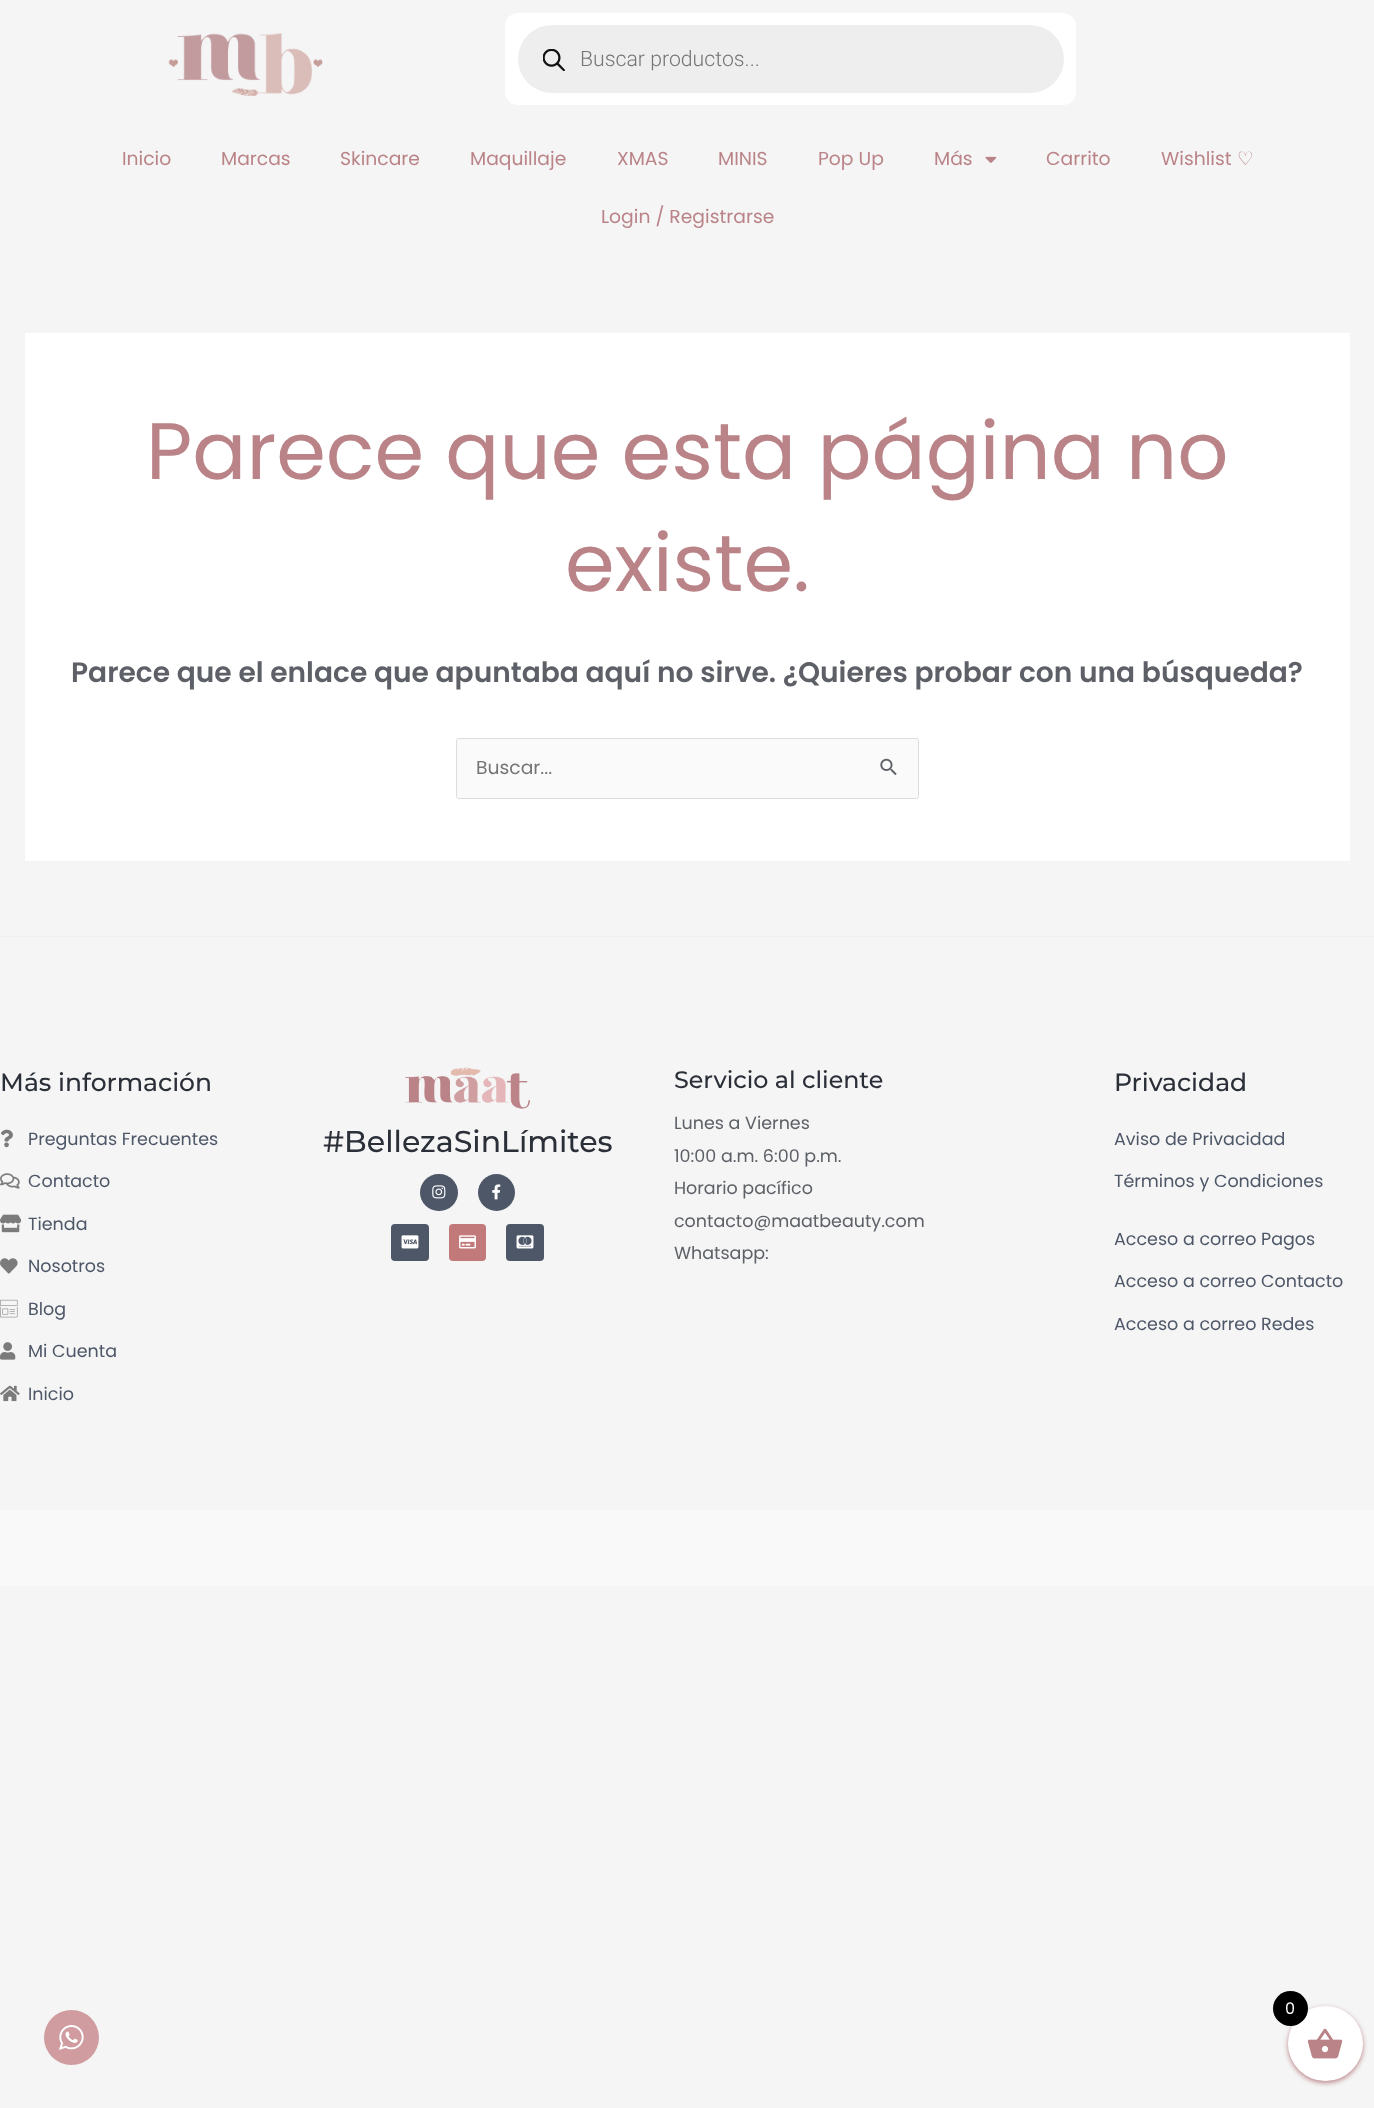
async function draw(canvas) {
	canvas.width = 1374;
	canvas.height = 2108;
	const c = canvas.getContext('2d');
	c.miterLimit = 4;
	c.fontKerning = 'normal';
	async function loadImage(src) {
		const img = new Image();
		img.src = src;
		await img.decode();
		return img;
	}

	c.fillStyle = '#f5f5f5';
	c.fillRect(0, 0, 1374, 2108);
	c.drawImage(await loadImage('img1.png'), 168, 33, 155, 63);
	c.fillStyle = '#fff';
	c.beginPath();
	c.roundRect(505, 13, 571, 92, 13);
	c.fill();
	c.fillStyle = '#eee';
	c.beginPath();
	c.roundRect(518, 25, 546, 68, 34);
	c.fill();
	c.drawImage(await loadImage('img2.png'), 543, 49, 22, 22);
	c.font = '300 21.25px Roboto';
	c.fillStyle = '#757575';
	c.fillText('Buscar productos...', 580, 66);
	c.font = '18.75px Poppins';
	c.fillStyle = '#ba8388';
	for (const [text, x, y] of [
		['Inicio', 122, 165],
		['Marcas', 221, 165],
		['Skincare', 340, 165],
		['Maquillaje', 470, 165],
		['XMAS', 617, 165],
		['MINIS', 718, 165],
		['Pop Up', 818, 165],
		['Más', 934, 165],
	]) {
		c.fillText(text, x, y);
	}
	c.drawImage(await loadImage('img3.png'), 985, 156, 12, 7);
	c.fillText('Carrito', 1046, 165);
	c.fillText('Wishlist', 1161, 165);
	c.font = '18.75px DejaVu Sans';
	c.fillText('♡', 1237, 165);
	c.font = '18.75px Poppins';
	c.fillText('Login / Registrarse', 601, 223);
	c.fillStyle = '#fff';
	c.fillRect(25, 333, 1325, 528);
	c.font = '80px Poppins';
	c.fillStyle = '#ba8388';
	c.fillText('Parece que esta página no', 146, 479);
	c.fillText('existe.', 565, 591);
	c.font = '600 28.1px Poppins';
	c.fillStyle = '#5d6167';
	c.fillText('Parece que el enlace que apuntaba aquí no sirve. ¿Quieres probar con una búsqueda?', 71, 682);
	c.fillStyle = '#fafafa';
	c.beginPath();
	c.roundRect(456.5, 738.5, 462, 60, 2);
	c.fill();
	c.strokeStyle = '#ddd';
	c.stroke();
	c.font = '18.75px Poppins';
	c.fillStyle = '#757575';
	c.fillText('Buscar...', 476, 774);
	c.drawImage(await loadImage('img4.png'), 880, 758, 17, 18);
	c.fillStyle = '#efeef4';
	c.fillRect(0, 936, 1374, 1);
	c.font = '500 25px Montserrat';
	c.fillStyle = '#2b2f38';
	c.fillText('Más información', 0, 1091);
	c.drawImage(await loadImage('img5.png'), 0, 1129, 13, 19);
	c.font = '17.5px Poppins';
	c.fillStyle = '#4e5768';
	c.fillText('Preguntas Frecuentes', 28, 1145);
	c.drawImage(await loadImage('img6.png'), 0, 1173, 20, 16);
	c.fillText('Contacto', 28, 1187);
	c.drawImage(await loadImage('img7.png'), 0, 1214, 22, 19);
	c.fillText('Tienda', 28, 1230);
	c.drawImage(await loadImage('img8.png'), 0, 1258, 18, 16);
	c.fillText('Nosotros', 28, 1272);
	c.drawImage(await loadImage('img9.png'), 0, 1299, 18, 19);
	c.fillText('Blog', 28, 1315);
	c.drawImage(await loadImage('img10.png'), 0, 1342, 16, 18);
	c.fillText('Mi Cuenta', 28, 1357);
	c.drawImage(await loadImage('img11.png'), 0, 1385, 20, 17);
	c.fillText('Inicio', 28, 1400);
	c.drawImage(await loadImage('img12.png'), 405, 1067, 125, 42);
	c.font = '500 30px Montserrat';
	c.fillStyle = '#2b2f38';
	c.fillText('#BellezaSinLímites', 323, 1152);
	c.fillStyle = '#4e5768';
	c.beginPath();
	c.roundRect(420, 1174, 38, 37, 18.5);
	c.fill();
	c.drawImage(await loadImage('img13.png'), 432, 1185, 14, 14);
	c.beginPath();
	c.arc(496.5, 1192.5, 18.5, 0, 2 * Math.PI);
	c.fill();
	c.drawImage(await loadImage('img14.png'), 492, 1184, 9, 16);
	c.beginPath();
	c.roundRect(391, 1224, 38, 37, 4);
	c.fill();
	c.drawImage(await loadImage('img15.png'), 401, 1235, 18, 14);
	c.fillStyle = '#c17979';
	c.beginPath();
	c.roundRect(449, 1224, 37, 37, 4);
	c.fill();
	c.drawImage(await loadImage('img16.png'), 459, 1235, 17, 14);
	c.fillStyle = '#4e5768';
	c.beginPath();
	c.roundRect(506, 1224, 38, 37, 4);
	c.fill();
	c.drawImage(await loadImage('img17.png'), 516, 1235, 18, 14);
	c.font = '500 23.75px Montserrat';
	c.fillStyle = '#2b2f38';
	c.fillText('Servicio al cliente', 674, 1088);
	c.font = '17.5px Poppins';
	c.fillStyle = '#5d6167';
	for (const [text, x, y] of [
		['Lunes a Viernes', 674, 1129],
		['10:00 a.m. 6:00 p.m.', 674, 1162],
		['Horario pacífico', 674, 1194],
		['contacto@maatbeauty.com', 674, 1227],
		['Whatsapp:', 674, 1259],
	]) {
		c.fillText(text, x, y);
	}
	c.font = '500 25px Montserrat';
	c.fillStyle = '#2b2f38';
	c.fillText('Privacidad', 1114, 1091);
	c.font = '17.5px Poppins';
	c.fillStyle = '#4e5768';
	for (const [text, x, y] of [
		['Aviso de Privacidad', 1114, 1145],
		['Términos y Condiciones', 1114, 1187],
		['Acceso a correo Pagos', 1114, 1245],
		['Acceso a correo Contacto', 1114, 1287],
		['Acceso a correo Redes', 1114, 1330],
	]) {
		c.fillText(text, x, y);
	}
	c.fillStyle = '#f9f9f9';
	c.fillRect(0, 1510, 1374, 76);
	c.fillStyle = '#ba8388';
	c.filter = 'blur(2.5px)';
	c.beginPath();
	c.roundRect(1288, 2008, 75, 75, 37.5);
	c.fill();
	c.filter = 'none';
	c.fillStyle = '#fff';
	c.beginPath();
	c.arc(1325.5, 2043.5, 37.5, 0, 2 * Math.PI);
	c.fill();
	c.fillStyle = '#000';
	c.beginPath();
	c.arc(1290.5, 2008.5, 17.5, 0, 2 * Math.PI);
	c.fill();
	c.font = '16px Poppins';
	c.fillStyle = '#fff';
	c.fillText('0', 1285, 2014);
	c.drawImage(await loadImage('img18.png'), 1307, 2028, 36, 31);
	c.fillStyle = '#d09ca0';
	c.beginPath();
	c.arc(71.5, 2037.5, 27.5, 0, 2 * Math.PI);
	c.fill();
	c.drawImage(await loadImage('img19.png'), 59, 2025, 25, 25);
}

draw(document.querySelector('canvas'));
